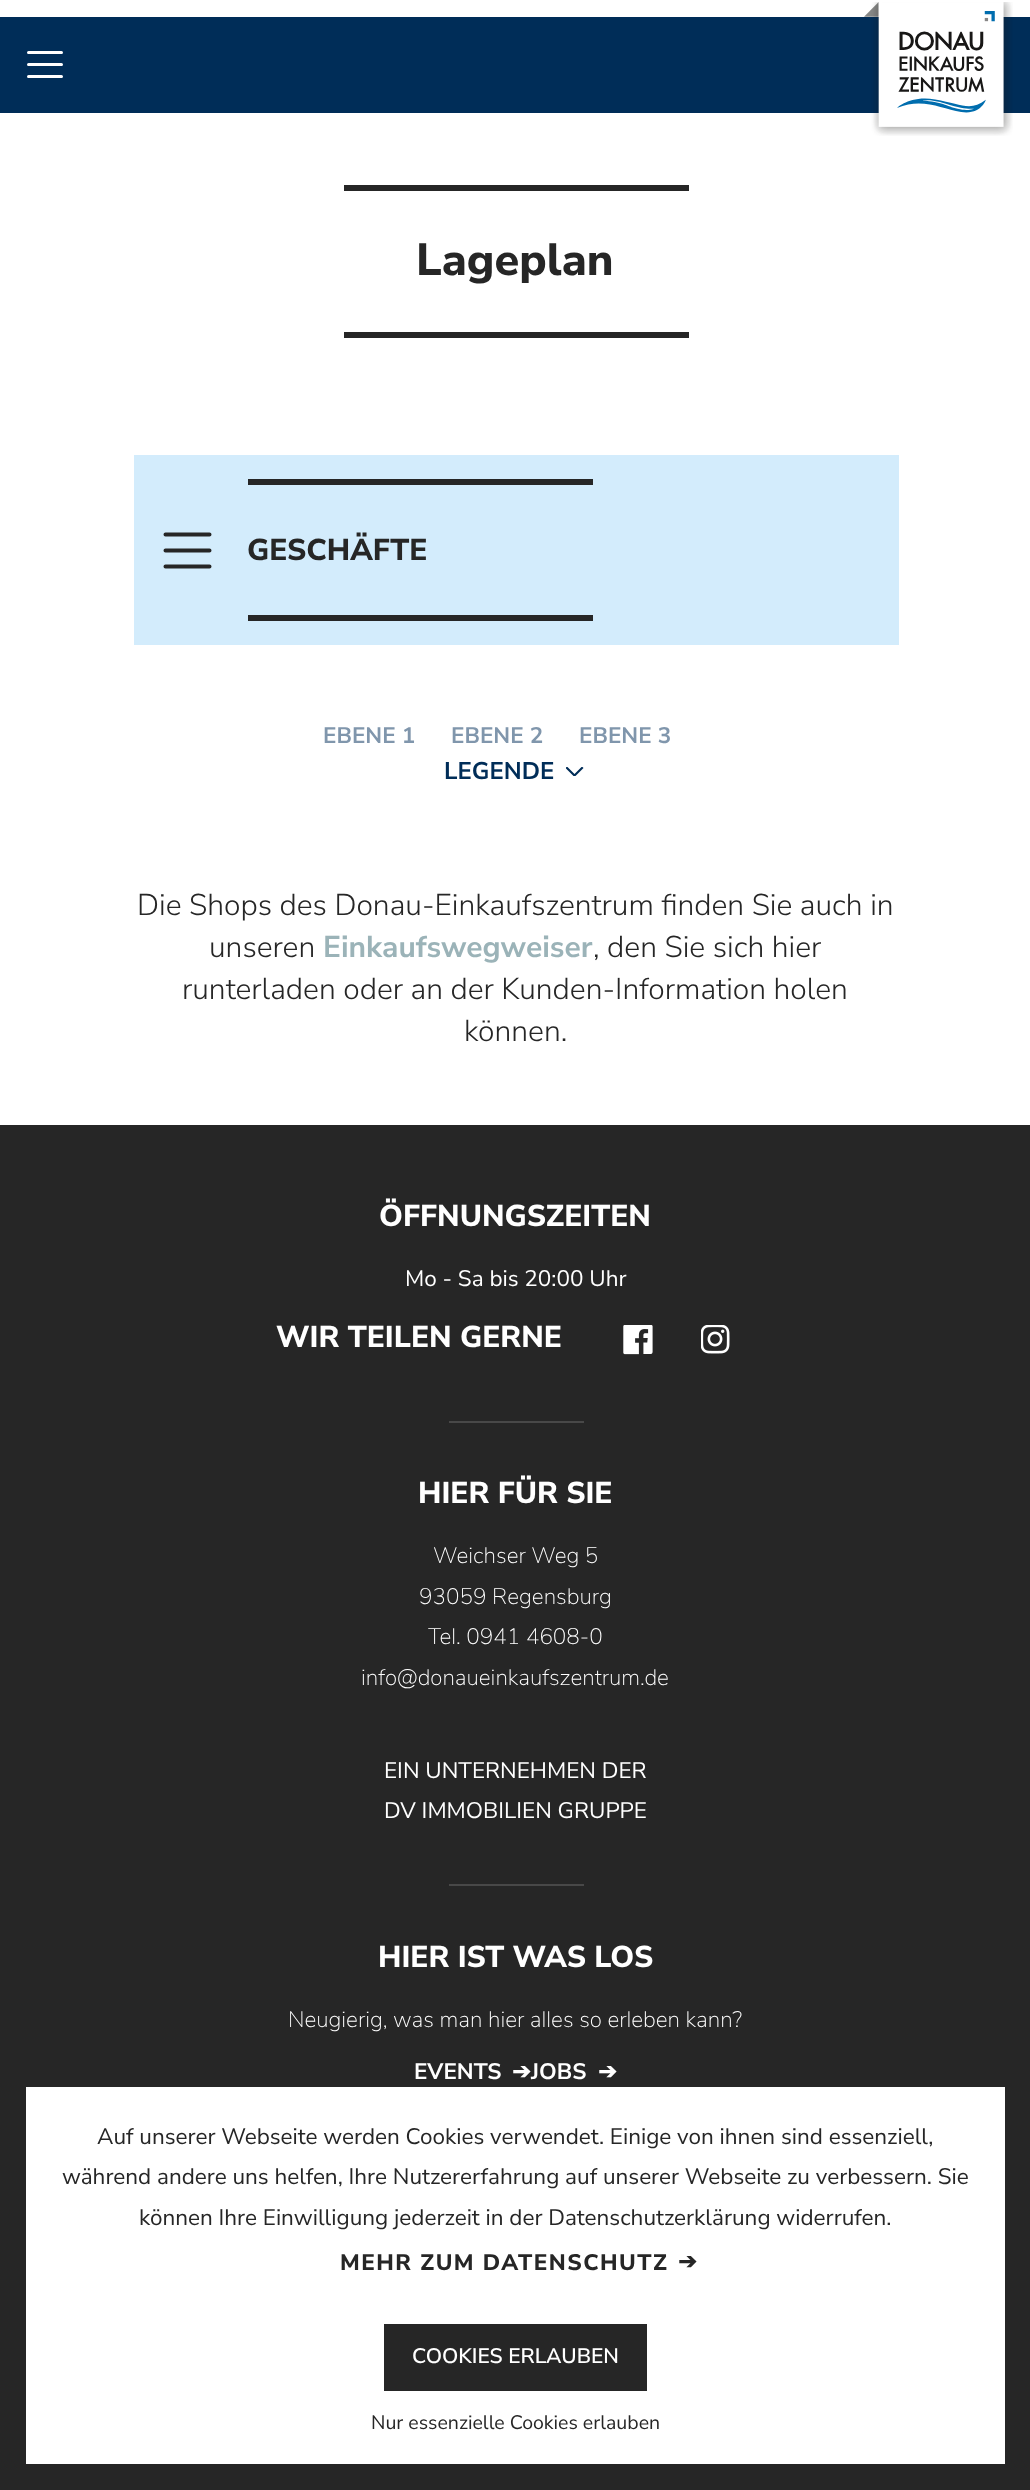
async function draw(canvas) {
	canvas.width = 1030;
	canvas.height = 2490;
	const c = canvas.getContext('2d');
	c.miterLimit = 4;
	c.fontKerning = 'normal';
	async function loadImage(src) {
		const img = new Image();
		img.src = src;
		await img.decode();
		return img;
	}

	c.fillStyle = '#fff';
	c.fillRect(0, 0, 1030, 2490);
	c.fillStyle = '#002d58';
	c.fillRect(0, 17, 1030, 96);
	c.beginPath();
	c.moveTo(28.5, 52.5);
	c.lineTo(61.5, 52.5);
	c.moveTo(28.5, 64.5);
	c.lineTo(61.5, 64.5);
	c.moveTo(28.5, 76.5);
	c.lineTo(61.5, 76.5);
	c.strokeStyle = '#fff';
	c.lineWidth = 3;
	c.lineCap = 'round';
	c.stroke();
	c.drawImage(await loadImage('img1.png'), 864, 2, 149, 134);
	c.fillStyle = '#262626';
	c.fillRect(344, 185, 345, 6);
	c.font = '800 45px Nunito Sans';
	c.fillText('Lageplan', 416, 275);
	c.fillRect(344, 332, 345, 6);
	c.fillStyle = '#d3ecfc';
	c.fillRect(134, 455, 765, 190);
	c.beginPath();
	c.moveTo(165.5, 534.5);
	c.lineTo(209.5, 534.5);
	c.moveTo(165.5, 550.5);
	c.lineTo(209.5, 550.5);
	c.moveTo(165.5, 566.5);
	c.lineTo(209.5, 566.5);
	c.strokeStyle = '#262626';
	c.lineWidth = 4;
	c.stroke();
	c.fillStyle = '#262626';
	c.fillRect(248, 479, 345, 6);
	c.font = '800 30px Nunito Sans';
	c.fillText('GESCHÄFTE', 247, 560);
	c.fillRect(248, 615, 345, 6);
	c.font = 'bold 22.5px Nunito Sans';
	c.fillStyle = '#8096ac';
	for (const [text, x, y] of [
		['EBENE 1', 323, 743],
		['EBENE 2', 451, 743],
		['EBENE 3', 579, 743],
	]) {
		c.fillText(text, x, y);
	}
	c.font = 'bold 24px Nunito Sans';
	c.fillStyle = '#002d58';
	c.fillText('LEGENDE', 444, 779);
	c.save();
	c.beginPath();
	c.rect(566, 767, 18, 9);
	c.clip();
	c.beginPath();
	c.moveTo(574.5, 777);
	c.lineTo(565.5, 768);
	c.lineTo(567, 766.5);
	c.lineTo(574.5, 774);
	c.lineTo(582, 766.5);
	c.lineTo(583.5, 768);
	c.closePath();
	c.fill();
	c.restore();
	c.font = '300 30px Nunito Sans';
	c.fillStyle = '#262626';
	c.fillText('Die Shops des Donau-Einkaufszentrum finden Sie auch in', 137, 915);
	c.fillText('unseren', 209, 957);
	c.font = 'bold 30px Nunito Sans';
	c.fillStyle = '#9bb3b8';
	c.fillText('Einkaufswegweiser', 323, 957);
	c.font = '300 30px Nunito Sans';
	c.fillStyle = '#262626';
	for (const [text, x, y] of [
		[', den Sie sich hier', 593, 957],
		['runterladen oder an der Kunden-Information holen', 182, 999],
		['können.', 464, 1041],
	]) {
		c.fillText(text, x, y);
	}
	c.fillRect(0, 1125, 1030, 1365);
	c.font = '800 30px Nunito Sans';
	c.fillStyle = '#fff';
	c.fillText('ÖFFNUNGSZEITEN', 379, 1226);
	c.font = '22.5px Nunito Sans';
	c.fillText('Mo - Sa bis 20:00 Uhr', 405, 1286);
	c.font = '800 30px Nunito Sans';
	c.fillText('WIR TEILEN GERNE', 276, 1347);
	c.drawImage(await loadImage('img2.png'), 623, 1325, 30, 30);
	c.drawImage(await loadImage('img3.png'), 701, 1325, 29, 29);
	c.fillStyle = '#484848';
	c.fillRect(449, 1421, 135, 2);
	c.fillStyle = '#fff';
	c.fillText('HIER FÜR SIE', 418, 1503);
	c.font = '200 22.5px Nunito Sans';
	for (const [text, x, y] of [
		['Weichser Weg 5', 433, 1563],
		['93059 Regensburg', 419, 1604],
		['Tel. 0941 4608-0', 428, 1644],
		['info@donaueinkaufszentrum.de', 361, 1685],
	]) {
		c.fillText(text, x, y);
	}
	c.font = '22.5px Nunito Sans';
	c.fillText('EIN UNTERNEHMEN DER', 384, 1778);
	c.fillText('DV IMMOBILIEN GRUPPE', 384, 1818);
	c.fillStyle = '#484848';
	c.fillRect(449, 1884, 135, 2);
	c.font = '800 30px Nunito Sans';
	c.fillStyle = '#fff';
	c.fillText('HIER IST WAS LOS', 378, 1967);
	c.font = '200 22.5px Nunito Sans';
	c.fillText('Neugierig, was man hier alles so erleben kann?', 288, 2027);
	c.font = 'bold 22.5px Nunito Sans';
	c.fillText('EVENTS', 414, 2079);
	c.font = 'bold 22.5px DejaVu Sans';
	c.fillText('➔', 512, 2079);
	c.font = 'bold 22.5px Nunito Sans';
	c.fillText('JOBS', 531, 2079);
	c.font = 'bold 22.5px DejaVu Sans';
	c.fillText('➔', 598, 2079);
	c.fillRect(26, 2087, 979, 377);
	c.font = '22.5px Nunito Sans';
	c.fillStyle = '#262626';
	for (const [text, x, y] of [
		['Auf unserer Webseite werden Cookies verwendet. Einige von ihnen sind essenziell,', 97, 2144],
		['während andere uns helfen, Ihre Nutzererfahrung auf unserer Webseite zu verbessern. Sie', 62, 2184],
		['können Ihre Einwilligung jederzeit in der Datenschutzerklärung widerrufen.', 139, 2225],
	]) {
		c.fillText(text, x, y);
	}
	c.letterSpacing = '1.5px';
	c.font = '800 22.5px Nunito Sans';
	c.fillText('MEHR ZUM DATENSCHUTZ', 340, 2270);
	c.font = 'bold 22.5px DejaVu Sans';
	c.fillText('➔', 678, 2269);
	c.fillRect(384, 2324, 263, 67);
	c.letterSpacing = '0px';
	c.font = '600 21px Nunito Sans';
	c.fillStyle = '#fff';
	c.fillText('COOKIES ERLAUBEN', 412, 2363);
	c.font = '19.5px Nunito Sans';
	c.fillStyle = '#262626';
	c.fillText('Nur essenzielle Cookies erlauben', 371, 2429);
}

draw(document.querySelector('canvas'));
